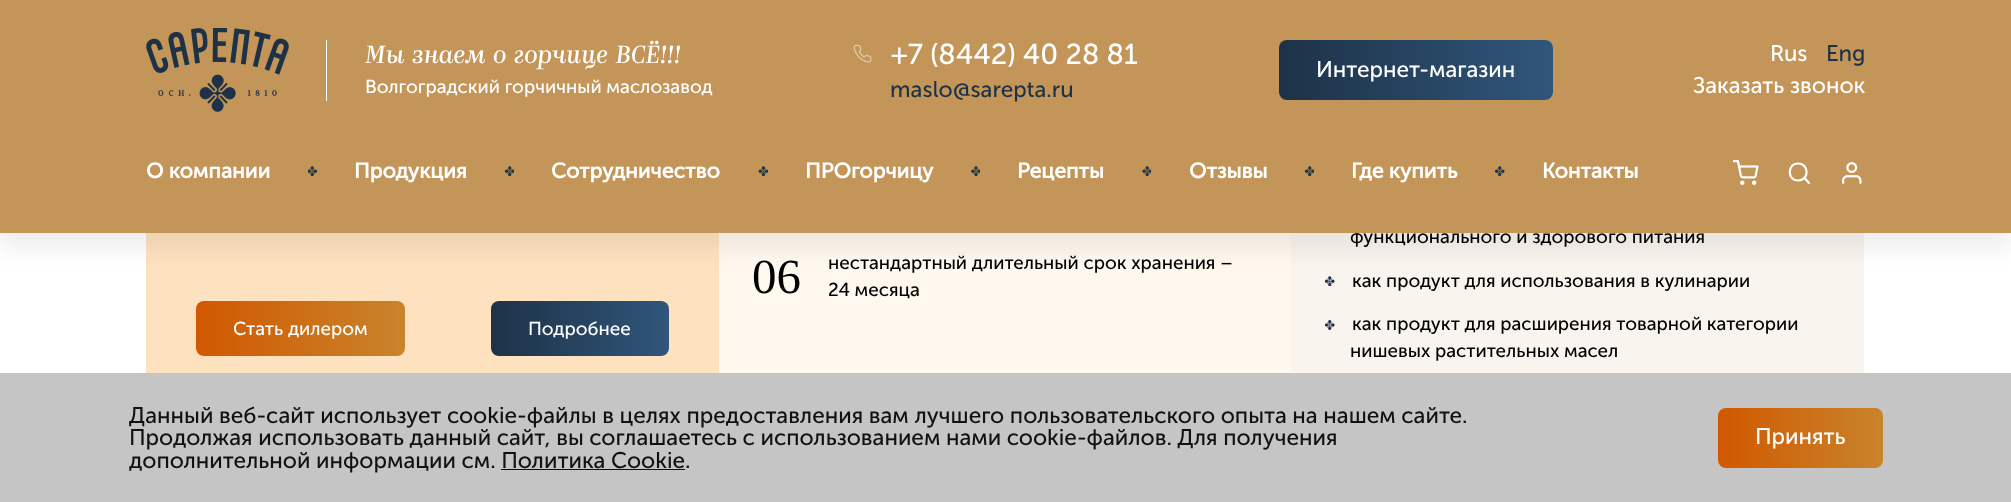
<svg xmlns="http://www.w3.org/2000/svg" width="2011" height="502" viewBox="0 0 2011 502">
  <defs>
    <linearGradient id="g1" gradientUnits="userSpaceOnUse" x1="1279" y1="70" x2="1553" y2="70"><stop offset="0" stop-color="rgb(29,50,71)"/><stop offset="1" stop-color="rgb(48,86,123)"/></linearGradient>
    <linearGradient id="g2" gradientUnits="userSpaceOnUse" x1="196" y1="329" x2="405" y2="329"><stop offset="0" stop-color="rgb(209,88,0)"/><stop offset="1" stop-color="rgb(200,132,44)"/></linearGradient>
    <linearGradient id="g3" gradientUnits="userSpaceOnUse" x1="491" y1="329" x2="669" y2="329"><stop offset="0" stop-color="rgb(29,50,71)"/><stop offset="1" stop-color="rgb(48,86,123)"/></linearGradient>
    <linearGradient id="g4" gradientUnits="userSpaceOnUse" x1="1718" y1="438" x2="1883" y2="438"><stop offset="0" stop-color="rgb(209,88,0)"/><stop offset="1" stop-color="rgb(200,132,44)"/></linearGradient>
  </defs>
  <rect width="100%" height="100%" fill="rgb(255,255,255)"/>
  <rect x="719" y="233" width="572" height="140" fill="rgb(255,248,239)"/>
  <rect x="1291" y="233" width="573" height="140" fill="rgb(249,244,238)"/>
  <image x="1325" y="276" width="10" height="10" href="pic11.png"/>
  <rect x="146" y="233" width="573" height="140" fill="rgb(254,226,192)"/>
  <rect x="0" y="19" width="2011" height="232" fill="rgba(0,0,0,0.06)" filter="blur(9.5px)"/>
  <text x="1350" y="243" font-family="'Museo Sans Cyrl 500'" font-size="18.75" fill="rgb(0,0,0)">функционального и здорового питания</text>
  <rect x="0" y="0" width="2011" height="233" fill="rgb(196,149,88)"/>
  <image x="146" y="28" width="143" height="84" href="pic1.png"/>
  <rect x="326" y="40" width="1" height="61" fill="rgb(255,255,255)"/>
  <text x="365" y="63" font-family="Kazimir" font-size="25" font-style="italic" fill="rgb(255,255,255)">Мы знаем о горчице ВСЁ!!!</text>
  <text x="365" y="93" font-family="'Museo Sans Cyrl 500'" font-size="18.75" fill="rgb(255,255,255)">Волгоградский горчичный маслозавод</text>
  <image x="853" y="44" width="19" height="19" href="pic2.png"/>
  <text x="891" y="64" font-family="'Museo Sans Cyrl 500'" font-size="28.75" fill="rgb(255,255,255)">+7 (8442) 40 28 81</text>
  <text x="890" y="97" font-family="'Museo Sans Cyrl 500'" font-size="22.5" fill="rgb(29,50,71)">maslo@sarepta.ru</text>
  <rect x="1279" y="40" width="274" height="60" rx="8" fill="url(#g1)"/>
  <g font-family="'Museo Sans Cyrl 500'" font-size="22.5" fill="rgb(255,255,255)">
    <text x="1316" y="77">Интернет-магазин</text>
    <text x="1770" y="61">Rus</text>
  </g>
  <text x="1826" y="61" font-family="'Museo Sans Cyrl 500'" font-size="22.5" fill="rgb(29,50,71)">Eng</text>
  <text x="1693" y="93" font-family="'Museo Sans Cyrl 500'" font-size="22.5" fill="rgb(255,255,255)">Заказать звонок</text>
  <text x="146" y="178" font-family="'Museo Sans Cyrl 500'" font-size="21.25" font-weight="bold" fill="rgb(255,255,255)">О компании</text>
  <image x="308" y="166" width="9" height="10" href="pic3.png"/>
  <text x="354" y="178" font-family="'Museo Sans Cyrl 500'" font-size="21.25" font-weight="bold" fill="rgb(255,255,255)">Продукция</text>
  <image x="504" y="166" width="10" height="10" href="pic4.png"/>
  <text x="551" y="178" font-family="'Museo Sans Cyrl 500'" font-size="21.25" font-weight="bold" fill="rgb(255,255,255)">Сотрудничество</text>
  <image x="758" y="166" width="10" height="10" href="pic5.png"/>
  <text x="805" y="178" font-family="'Museo Sans Cyrl 500'" font-size="21.25" font-weight="bold" fill="rgb(255,255,255)">ПРОгорчицу</text>
  <image x="971" y="166" width="9" height="10" href="pic6.png"/>
  <text x="1017" y="178" font-family="'Museo Sans Cyrl 500'" font-size="21.25" font-weight="bold" fill="rgb(255,255,255)">Рецепты</text>
  <image x="1142" y="166" width="9" height="10" href="pic7.png"/>
  <text x="1189" y="178" font-family="'Museo Sans Cyrl 500'" font-size="21.25" font-weight="bold" fill="rgb(255,255,255)">Отзывы</text>
  <image x="1304" y="166" width="10" height="10" href="pic4.png"/>
  <text x="1351" y="178" font-family="'Museo Sans Cyrl 500'" font-size="21.25" font-weight="bold" fill="rgb(255,255,255)">Где купить</text>
  <image x="1495" y="166" width="10" height="10" href="pic8.png"/>
  <text x="1542" y="178" font-family="'Museo Sans Cyrl 500'" font-size="21.25" font-weight="bold" fill="rgb(255,255,255)">Контакты</text>
  <image x="1733" y="160" width="26" height="25" href="pic9.png"/>
  <path d="M1798 180.5C1809.5 180.5 1809.5 163.5 1798 163.5C1787 163.5 1787 180.5 1798 180.5ZM1809 183L1804.5 178" fill="none" stroke="rgb(255,255,255)" stroke-width="2.2" stroke-linecap="round" stroke-linejoin="round"/>
  <image x="1842" y="162" width="20" height="22" href="pic10.png"/>
  <text x="752" y="293" font-family="Liberation Serif" font-size="49" fill="rgb(0,0,0)">06</text>
  <g font-family="'Museo Sans Cyrl 500'" font-size="18.75" fill="rgb(0,0,0)">
    <text>
      <tspan x="828" y="269">нестандартный длительный срок хранения –</tspan>
      <tspan x="828" y="296">24 месяца</tspan>
    </text>
    <text x="1352" y="287">как продукт для использования в кулинарии</text>
  </g>
  <image x="1325" y="320" width="10" height="10" href="pic12.png"/>
  <g font-family="'Museo Sans Cyrl 500'" font-size="18.75" fill="rgb(0,0,0)">
    <text x="1352" y="330">как продукт для расширения товарной категории</text>
    <text x="1350" y="357">нишевых растительных масел</text>
  </g>
  <rect x="196" y="301" width="209" height="55" rx="8" fill="url(#g2)"/>
  <text x="233" y="335" font-family="'Museo Sans Cyrl 500'" font-size="18.75" fill="rgb(255,255,255)">Стать дилером</text>
  <rect x="491" y="301" width="178" height="55" rx="8" fill="url(#g3)"/>
  <text x="528" y="335" font-family="'Museo Sans Cyrl 500'" font-size="18.75" fill="rgb(255,255,255)">Подробнее</text>
  <rect x="0" y="373" width="2011" height="129" fill="rgb(197,197,197)"/>
  <g font-family="'Museo Sans Cyrl 500'" font-size="22.5" fill="rgb(17,17,17)">
    <text>
      <tspan x="129" y="423">Данный веб-сайт использует cookie-файлы в целях предоставления вам лучшего пользовательского опыта на нашем сайте.</tspan>
      <tspan x="129" y="445">Продолжая использовать данный сайт, вы соглашаетесь с использованием нами cookie-файлов. Для получения</tspan>
      <tspan x="129" y="468">дополнительной информации см. Политика Cookie.</tspan>
    </text>
  </g>
  <rect x="501" y="469" width="184" height="1" fill="rgb(17,17,17)"/>
  <rect x="1718" y="408" width="165" height="60" rx="8" fill="url(#g4)"/>
  <text x="1755" y="444" font-family="'Museo Sans Cyrl 500'" font-size="22.5" fill="rgb(255,255,255)">Принять</text>
</svg>
